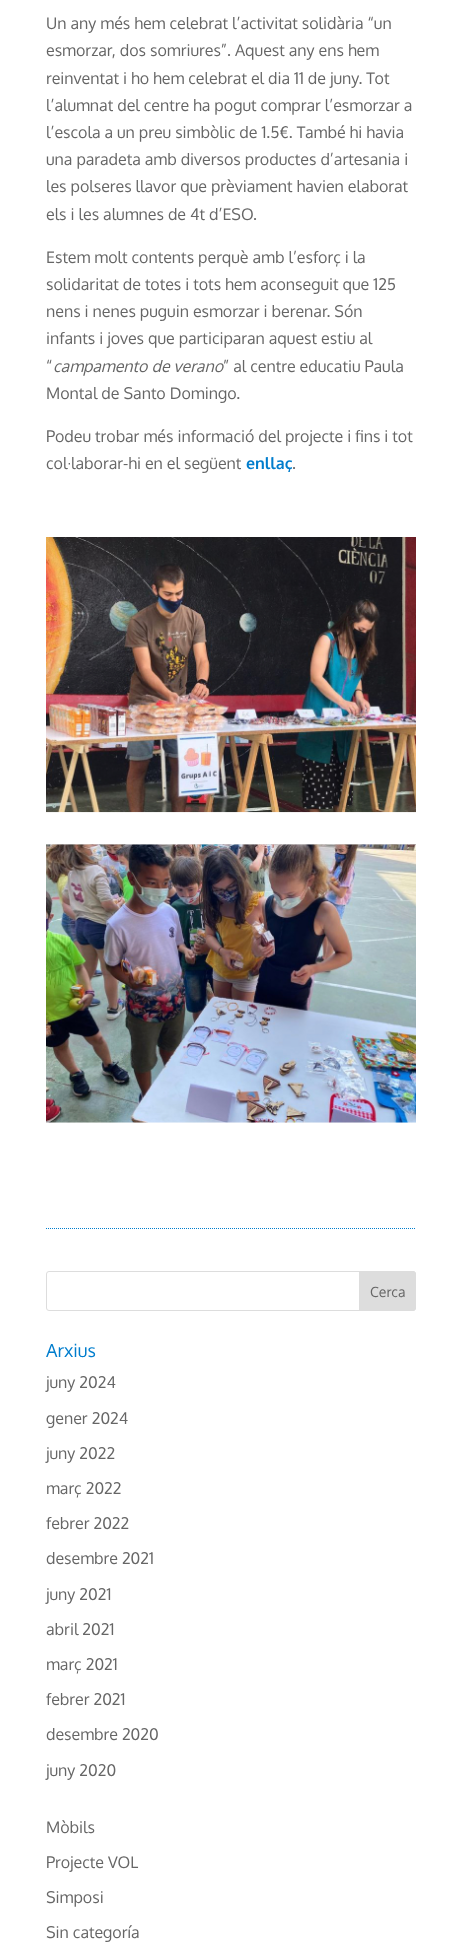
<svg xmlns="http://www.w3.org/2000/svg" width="462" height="1958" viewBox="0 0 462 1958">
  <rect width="100%" height="100%" fill="rgb(255,255,255)"/>
  <path d="M46 1228.5H416" fill="none" stroke="rgb(0,125,205)" stroke-dasharray="1 1"/>
  <g font-family="Oxygen" font-size="16" fill="rgb(102,102,102)">
    <text>
      <tspan x="46" y="29">Un any més hem celebrat l’activitat solidària “un</tspan>
      <tspan x="46" y="56">esmorzar, dos somriures”. Aquest any ens hem</tspan>
      <tspan x="46" y="84">reinventat i ho hem celebrat el dia 11 de juny. Tot</tspan>
      <tspan x="46" y="111">l’alumnat del centre ha pogut comprar l’esmorzar a</tspan>
      <tspan x="46" y="138">l’escola a un preu simbòlic de 1.5€. També hi havia</tspan>
      <tspan x="46" y="165">una paradeta amb diversos productes d’artesania i</tspan>
      <tspan x="46" y="192">les polseres llavor que prèviament havien elaborat</tspan>
      <tspan x="46" y="220">els i les alumnes de 4t d’ESO.</tspan>
    </text>
    <text>
      <tspan x="46" y="263">Estem molt contents perquè amb l’esforç i la</tspan>
      <tspan x="46" y="290">solidaritat de totes i tots hem aconseguit que 125</tspan>
      <tspan x="46" y="317">nens i nenes puguin esmorzar i berenar. Són</tspan>
      <tspan x="46" y="344">infants i joves que participaran aquest estiu al</tspan>
      <tspan x="46" y="372">“</tspan>
    </text>
  </g>
  <text x="53" y="372" font-family="Oxygen" font-size="16" font-style="italic" fill="rgb(102,102,102)">campamento de verano</text>
  <g font-family="Oxygen" font-size="16" fill="rgb(102,102,102)">
    <text x="223" y="372">” al centre educatiu Paula</text>
    <text x="46" y="399">Montal de Santo Domingo.</text>
    <text>
      <tspan x="46" y="442">Podeu trobar més informació del projecte i fins i tot</tspan>
      <tspan x="46" y="469">col·laborar-hi en el següent</tspan>
    </text>
  </g>
  <text x="246" y="469" font-family="Oxygen" font-size="16" font-weight="bold" fill="rgb(0,125,205)">enllaç</text>
  <text x="292" y="469" font-family="Oxygen" font-size="16" fill="rgb(102,102,102)">.</text>
  <image x="46" y="537" width="370" height="276" href="pic1.png"/>
  <image x="46" y="844" width="370" height="279" href="pic2.png"/>
  <rect x="46.5" y="1271.5" width="369" height="39" rx="2.5" fill="none" stroke="rgb(221,221,221)"/>
  <path d="M359.5 1271.5H413C414.5 1271.5 415.5 1272.5 415.5 1274V1308C415.5 1309.5 414.5 1310.5 413 1310.5H359.5Z" fill="rgb(221,221,221)" stroke="rgb(221,221,221)"/>
  <text x="370" y="1297" font-family="Oxygen" font-size="14" fill="rgb(102,102,102)">Cerca</text>
  <text x="46" y="1357" font-family="Oxygen" font-size="18" fill="rgb(0,125,205)">Arxius</text>
  <g font-family="Oxygen" font-size="16" fill="rgb(102,102,102)">
    <text x="46" y="1388">juny 2024</text>
    <text x="46" y="1424">gener 2024</text>
    <text x="46" y="1459">juny 2022</text>
    <text x="46" y="1494">març 2022</text>
    <text x="46" y="1529">febrer 2022</text>
    <text x="46" y="1564">desembre 2021</text>
    <text x="46" y="1600">juny 2021</text>
    <text x="46" y="1635">abril 2021</text>
    <text x="46" y="1670">març 2021</text>
    <text x="46" y="1705">febrer 2021</text>
    <text x="46" y="1740">desembre 2020</text>
    <text x="46" y="1776">juny 2020</text>
    <text x="46" y="1833">Mòbils</text>
    <text x="46" y="1868">Projecte VOL</text>
    <text x="46" y="1903">Simposi</text>
    <text x="46" y="1938">Sin categoría</text>
  </g>
</svg>
